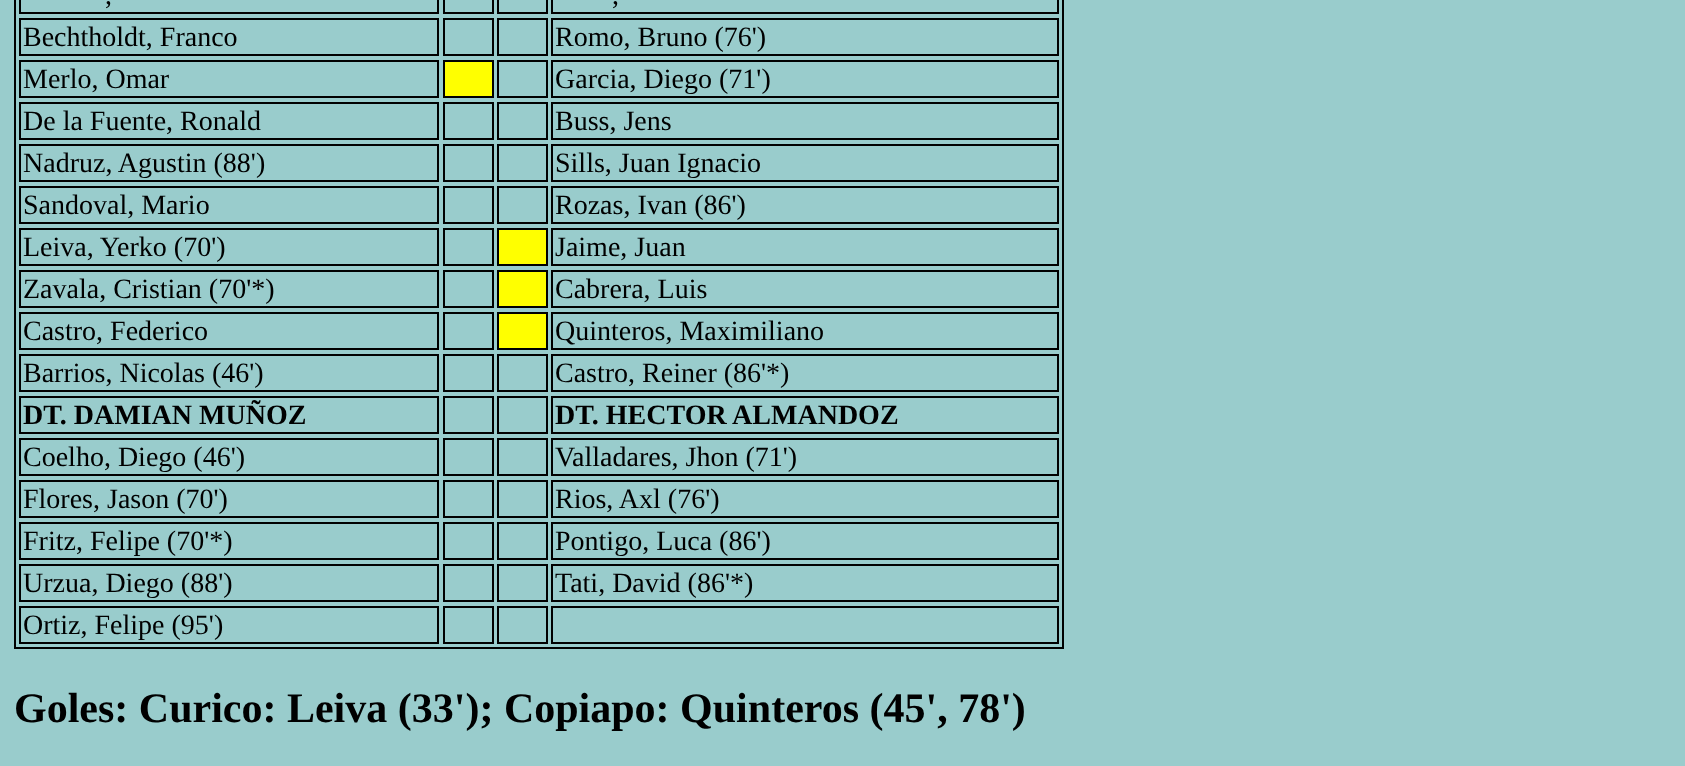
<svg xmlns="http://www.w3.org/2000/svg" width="1685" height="766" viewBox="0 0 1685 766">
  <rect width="100%" height="100%" fill="rgb(153,204,204)"/>
  <rect x="15" y="-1" width="1048" height="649" fill="none" stroke="rgb(0,0,0)" stroke-width="2"/>
  <rect x="20" y="-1" width="418" height="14" fill="none" stroke="rgb(0,0,0)" stroke-width="2"/>
  <text x="105" y="4" font-family="Liberation Serif" font-size="28" fill="rgb(0,0,0)">,</text>
  <rect x="444" y="-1" width="49" height="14" fill="none" stroke="rgb(0,0,0)" stroke-width="2"/>
  <rect x="498" y="-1" width="49" height="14" fill="none" stroke="rgb(0,0,0)" stroke-width="2"/>
  <rect x="552" y="-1" width="506" height="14" fill="none" stroke="rgb(0,0,0)" stroke-width="2"/>
  <text x="612" y="4" font-family="Liberation Serif" font-size="28" fill="rgb(0,0,0)">,</text>
  <rect x="20" y="19" width="418" height="36" fill="none" stroke="rgb(0,0,0)" stroke-width="2"/>
  <text x="23" y="46" font-family="Liberation Serif" font-size="28" fill="rgb(0,0,0)">Bechtholdt, Franco</text>
  <rect x="444" y="19" width="49" height="36" fill="none" stroke="rgb(0,0,0)" stroke-width="2"/>
  <rect x="498" y="19" width="49" height="36" fill="none" stroke="rgb(0,0,0)" stroke-width="2"/>
  <rect x="552" y="19" width="506" height="36" fill="none" stroke="rgb(0,0,0)" stroke-width="2"/>
  <text x="555" y="46" font-family="Liberation Serif" font-size="28" fill="rgb(0,0,0)">Romo, Bruno (76')</text>
  <rect x="20" y="61" width="418" height="36" fill="none" stroke="rgb(0,0,0)" stroke-width="2"/>
  <text x="23" y="88" font-family="Liberation Serif" font-size="28" fill="rgb(0,0,0)">Merlo, Omar</text>
  <rect x="444" y="61" width="49" height="36" fill="rgb(255,255,0)" stroke="rgb(0,0,0)" stroke-width="2"/>
  <rect x="498" y="61" width="49" height="36" fill="none" stroke="rgb(0,0,0)" stroke-width="2"/>
  <rect x="552" y="61" width="506" height="36" fill="none" stroke="rgb(0,0,0)" stroke-width="2"/>
  <text x="555" y="88" font-family="Liberation Serif" font-size="28" fill="rgb(0,0,0)">Garcia, Diego (71')</text>
  <rect x="20" y="103" width="418" height="36" fill="none" stroke="rgb(0,0,0)" stroke-width="2"/>
  <text x="23" y="130" font-family="Liberation Serif" font-size="28" fill="rgb(0,0,0)">De la Fuente, Ronald</text>
  <rect x="444" y="103" width="49" height="36" fill="none" stroke="rgb(0,0,0)" stroke-width="2"/>
  <rect x="498" y="103" width="49" height="36" fill="none" stroke="rgb(0,0,0)" stroke-width="2"/>
  <rect x="552" y="103" width="506" height="36" fill="none" stroke="rgb(0,0,0)" stroke-width="2"/>
  <text x="555" y="130" font-family="Liberation Serif" font-size="28" fill="rgb(0,0,0)">Buss, Jens</text>
  <rect x="20" y="145" width="418" height="36" fill="none" stroke="rgb(0,0,0)" stroke-width="2"/>
  <text x="23" y="172" font-family="Liberation Serif" font-size="28" fill="rgb(0,0,0)">Nadruz, Agustin (88')</text>
  <rect x="444" y="145" width="49" height="36" fill="none" stroke="rgb(0,0,0)" stroke-width="2"/>
  <rect x="498" y="145" width="49" height="36" fill="none" stroke="rgb(0,0,0)" stroke-width="2"/>
  <rect x="552" y="145" width="506" height="36" fill="none" stroke="rgb(0,0,0)" stroke-width="2"/>
  <text x="555" y="172" font-family="Liberation Serif" font-size="28" fill="rgb(0,0,0)">Sills, Juan Ignacio</text>
  <rect x="20" y="187" width="418" height="36" fill="none" stroke="rgb(0,0,0)" stroke-width="2"/>
  <text x="23" y="214" font-family="Liberation Serif" font-size="28" fill="rgb(0,0,0)">Sandoval, Mario</text>
  <rect x="444" y="187" width="49" height="36" fill="none" stroke="rgb(0,0,0)" stroke-width="2"/>
  <rect x="498" y="187" width="49" height="36" fill="none" stroke="rgb(0,0,0)" stroke-width="2"/>
  <rect x="552" y="187" width="506" height="36" fill="none" stroke="rgb(0,0,0)" stroke-width="2"/>
  <text x="555" y="214" font-family="Liberation Serif" font-size="28" fill="rgb(0,0,0)">Rozas, Ivan (86')</text>
  <rect x="20" y="229" width="418" height="36" fill="none" stroke="rgb(0,0,0)" stroke-width="2"/>
  <text x="23" y="256" font-family="Liberation Serif" font-size="28" fill="rgb(0,0,0)">Leiva, Yerko (70')</text>
  <rect x="444" y="229" width="49" height="36" fill="none" stroke="rgb(0,0,0)" stroke-width="2"/>
  <rect x="498" y="229" width="49" height="36" fill="rgb(255,255,0)" stroke="rgb(0,0,0)" stroke-width="2"/>
  <rect x="552" y="229" width="506" height="36" fill="none" stroke="rgb(0,0,0)" stroke-width="2"/>
  <text x="555" y="256" font-family="Liberation Serif" font-size="28" fill="rgb(0,0,0)">Jaime, Juan</text>
  <rect x="20" y="271" width="418" height="36" fill="none" stroke="rgb(0,0,0)" stroke-width="2"/>
  <text x="23" y="298" font-family="Liberation Serif" font-size="28" fill="rgb(0,0,0)">Zavala, Cristian (70'*)</text>
  <rect x="444" y="271" width="49" height="36" fill="none" stroke="rgb(0,0,0)" stroke-width="2"/>
  <rect x="498" y="271" width="49" height="36" fill="rgb(255,255,0)" stroke="rgb(0,0,0)" stroke-width="2"/>
  <rect x="552" y="271" width="506" height="36" fill="none" stroke="rgb(0,0,0)" stroke-width="2"/>
  <text x="555" y="298" font-family="Liberation Serif" font-size="28" fill="rgb(0,0,0)">Cabrera, Luis</text>
  <rect x="20" y="313" width="418" height="36" fill="none" stroke="rgb(0,0,0)" stroke-width="2"/>
  <text x="23" y="340" font-family="Liberation Serif" font-size="28" fill="rgb(0,0,0)">Castro, Federico</text>
  <rect x="444" y="313" width="49" height="36" fill="none" stroke="rgb(0,0,0)" stroke-width="2"/>
  <rect x="498" y="313" width="49" height="36" fill="rgb(255,255,0)" stroke="rgb(0,0,0)" stroke-width="2"/>
  <rect x="552" y="313" width="506" height="36" fill="none" stroke="rgb(0,0,0)" stroke-width="2"/>
  <text x="555" y="340" font-family="Liberation Serif" font-size="28" fill="rgb(0,0,0)">Quinteros, Maximiliano</text>
  <rect x="20" y="355" width="418" height="36" fill="none" stroke="rgb(0,0,0)" stroke-width="2"/>
  <text x="23" y="382" font-family="Liberation Serif" font-size="28" fill="rgb(0,0,0)">Barrios, Nicolas (46')</text>
  <rect x="444" y="355" width="49" height="36" fill="none" stroke="rgb(0,0,0)" stroke-width="2"/>
  <rect x="498" y="355" width="49" height="36" fill="none" stroke="rgb(0,0,0)" stroke-width="2"/>
  <rect x="552" y="355" width="506" height="36" fill="none" stroke="rgb(0,0,0)" stroke-width="2"/>
  <text x="555" y="382" font-family="Liberation Serif" font-size="28" fill="rgb(0,0,0)">Castro, Reiner (86'*)</text>
  <rect x="20" y="397" width="418" height="36" fill="none" stroke="rgb(0,0,0)" stroke-width="2"/>
  <text x="23" y="424" font-family="Liberation Serif" font-size="28" font-weight="bold" fill="rgb(0,0,0)">DT. DAMIAN MUÑOZ</text>
  <rect x="444" y="397" width="49" height="36" fill="none" stroke="rgb(0,0,0)" stroke-width="2"/>
  <rect x="498" y="397" width="49" height="36" fill="none" stroke="rgb(0,0,0)" stroke-width="2"/>
  <rect x="552" y="397" width="506" height="36" fill="none" stroke="rgb(0,0,0)" stroke-width="2"/>
  <text x="555" y="424" font-family="Liberation Serif" font-size="28" font-weight="bold" fill="rgb(0,0,0)">DT. HECTOR ALMANDOZ</text>
  <rect x="20" y="439" width="418" height="36" fill="none" stroke="rgb(0,0,0)" stroke-width="2"/>
  <text x="23" y="466" font-family="Liberation Serif" font-size="28" fill="rgb(0,0,0)">Coelho, Diego (46')</text>
  <rect x="444" y="439" width="49" height="36" fill="none" stroke="rgb(0,0,0)" stroke-width="2"/>
  <rect x="498" y="439" width="49" height="36" fill="none" stroke="rgb(0,0,0)" stroke-width="2"/>
  <rect x="552" y="439" width="506" height="36" fill="none" stroke="rgb(0,0,0)" stroke-width="2"/>
  <text x="555" y="466" font-family="Liberation Serif" font-size="28" fill="rgb(0,0,0)">Valladares, Jhon (71')</text>
  <rect x="20" y="481" width="418" height="36" fill="none" stroke="rgb(0,0,0)" stroke-width="2"/>
  <text x="23" y="508" font-family="Liberation Serif" font-size="28" fill="rgb(0,0,0)">Flores, Jason (70')</text>
  <rect x="444" y="481" width="49" height="36" fill="none" stroke="rgb(0,0,0)" stroke-width="2"/>
  <rect x="498" y="481" width="49" height="36" fill="none" stroke="rgb(0,0,0)" stroke-width="2"/>
  <rect x="552" y="481" width="506" height="36" fill="none" stroke="rgb(0,0,0)" stroke-width="2"/>
  <text x="555" y="508" font-family="Liberation Serif" font-size="28" fill="rgb(0,0,0)">Rios, Axl (76')</text>
  <rect x="20" y="523" width="418" height="36" fill="none" stroke="rgb(0,0,0)" stroke-width="2"/>
  <text x="23" y="550" font-family="Liberation Serif" font-size="28" fill="rgb(0,0,0)">Fritz, Felipe (70'*)</text>
  <rect x="444" y="523" width="49" height="36" fill="none" stroke="rgb(0,0,0)" stroke-width="2"/>
  <rect x="498" y="523" width="49" height="36" fill="none" stroke="rgb(0,0,0)" stroke-width="2"/>
  <rect x="552" y="523" width="506" height="36" fill="none" stroke="rgb(0,0,0)" stroke-width="2"/>
  <text x="555" y="550" font-family="Liberation Serif" font-size="28" fill="rgb(0,0,0)">Pontigo, Luca (86')</text>
  <rect x="20" y="565" width="418" height="36" fill="none" stroke="rgb(0,0,0)" stroke-width="2"/>
  <text x="23" y="592" font-family="Liberation Serif" font-size="28" fill="rgb(0,0,0)">Urzua, Diego (88')</text>
  <rect x="444" y="565" width="49" height="36" fill="none" stroke="rgb(0,0,0)" stroke-width="2"/>
  <rect x="498" y="565" width="49" height="36" fill="none" stroke="rgb(0,0,0)" stroke-width="2"/>
  <rect x="552" y="565" width="506" height="36" fill="none" stroke="rgb(0,0,0)" stroke-width="2"/>
  <text x="555" y="592" font-family="Liberation Serif" font-size="28" fill="rgb(0,0,0)">Tati, David (86'*)</text>
  <rect x="20" y="607" width="418" height="36" fill="none" stroke="rgb(0,0,0)" stroke-width="2"/>
  <text x="23" y="634" font-family="Liberation Serif" font-size="28" fill="rgb(0,0,0)">Ortiz, Felipe (95')</text>
  <rect x="444" y="607" width="49" height="36" fill="none" stroke="rgb(0,0,0)" stroke-width="2"/>
  <rect x="498" y="607" width="49" height="36" fill="none" stroke="rgb(0,0,0)" stroke-width="2"/>
  <rect x="552" y="607" width="506" height="36" fill="none" stroke="rgb(0,0,0)" stroke-width="2"/>
  <text x="14" y="722" font-family="Liberation Serif" font-size="42" font-weight="bold" fill="rgb(0,0,0)">Goles: Curico: Leiva (33'); Copiapo: Quinteros (45', 78')</text>
</svg>
